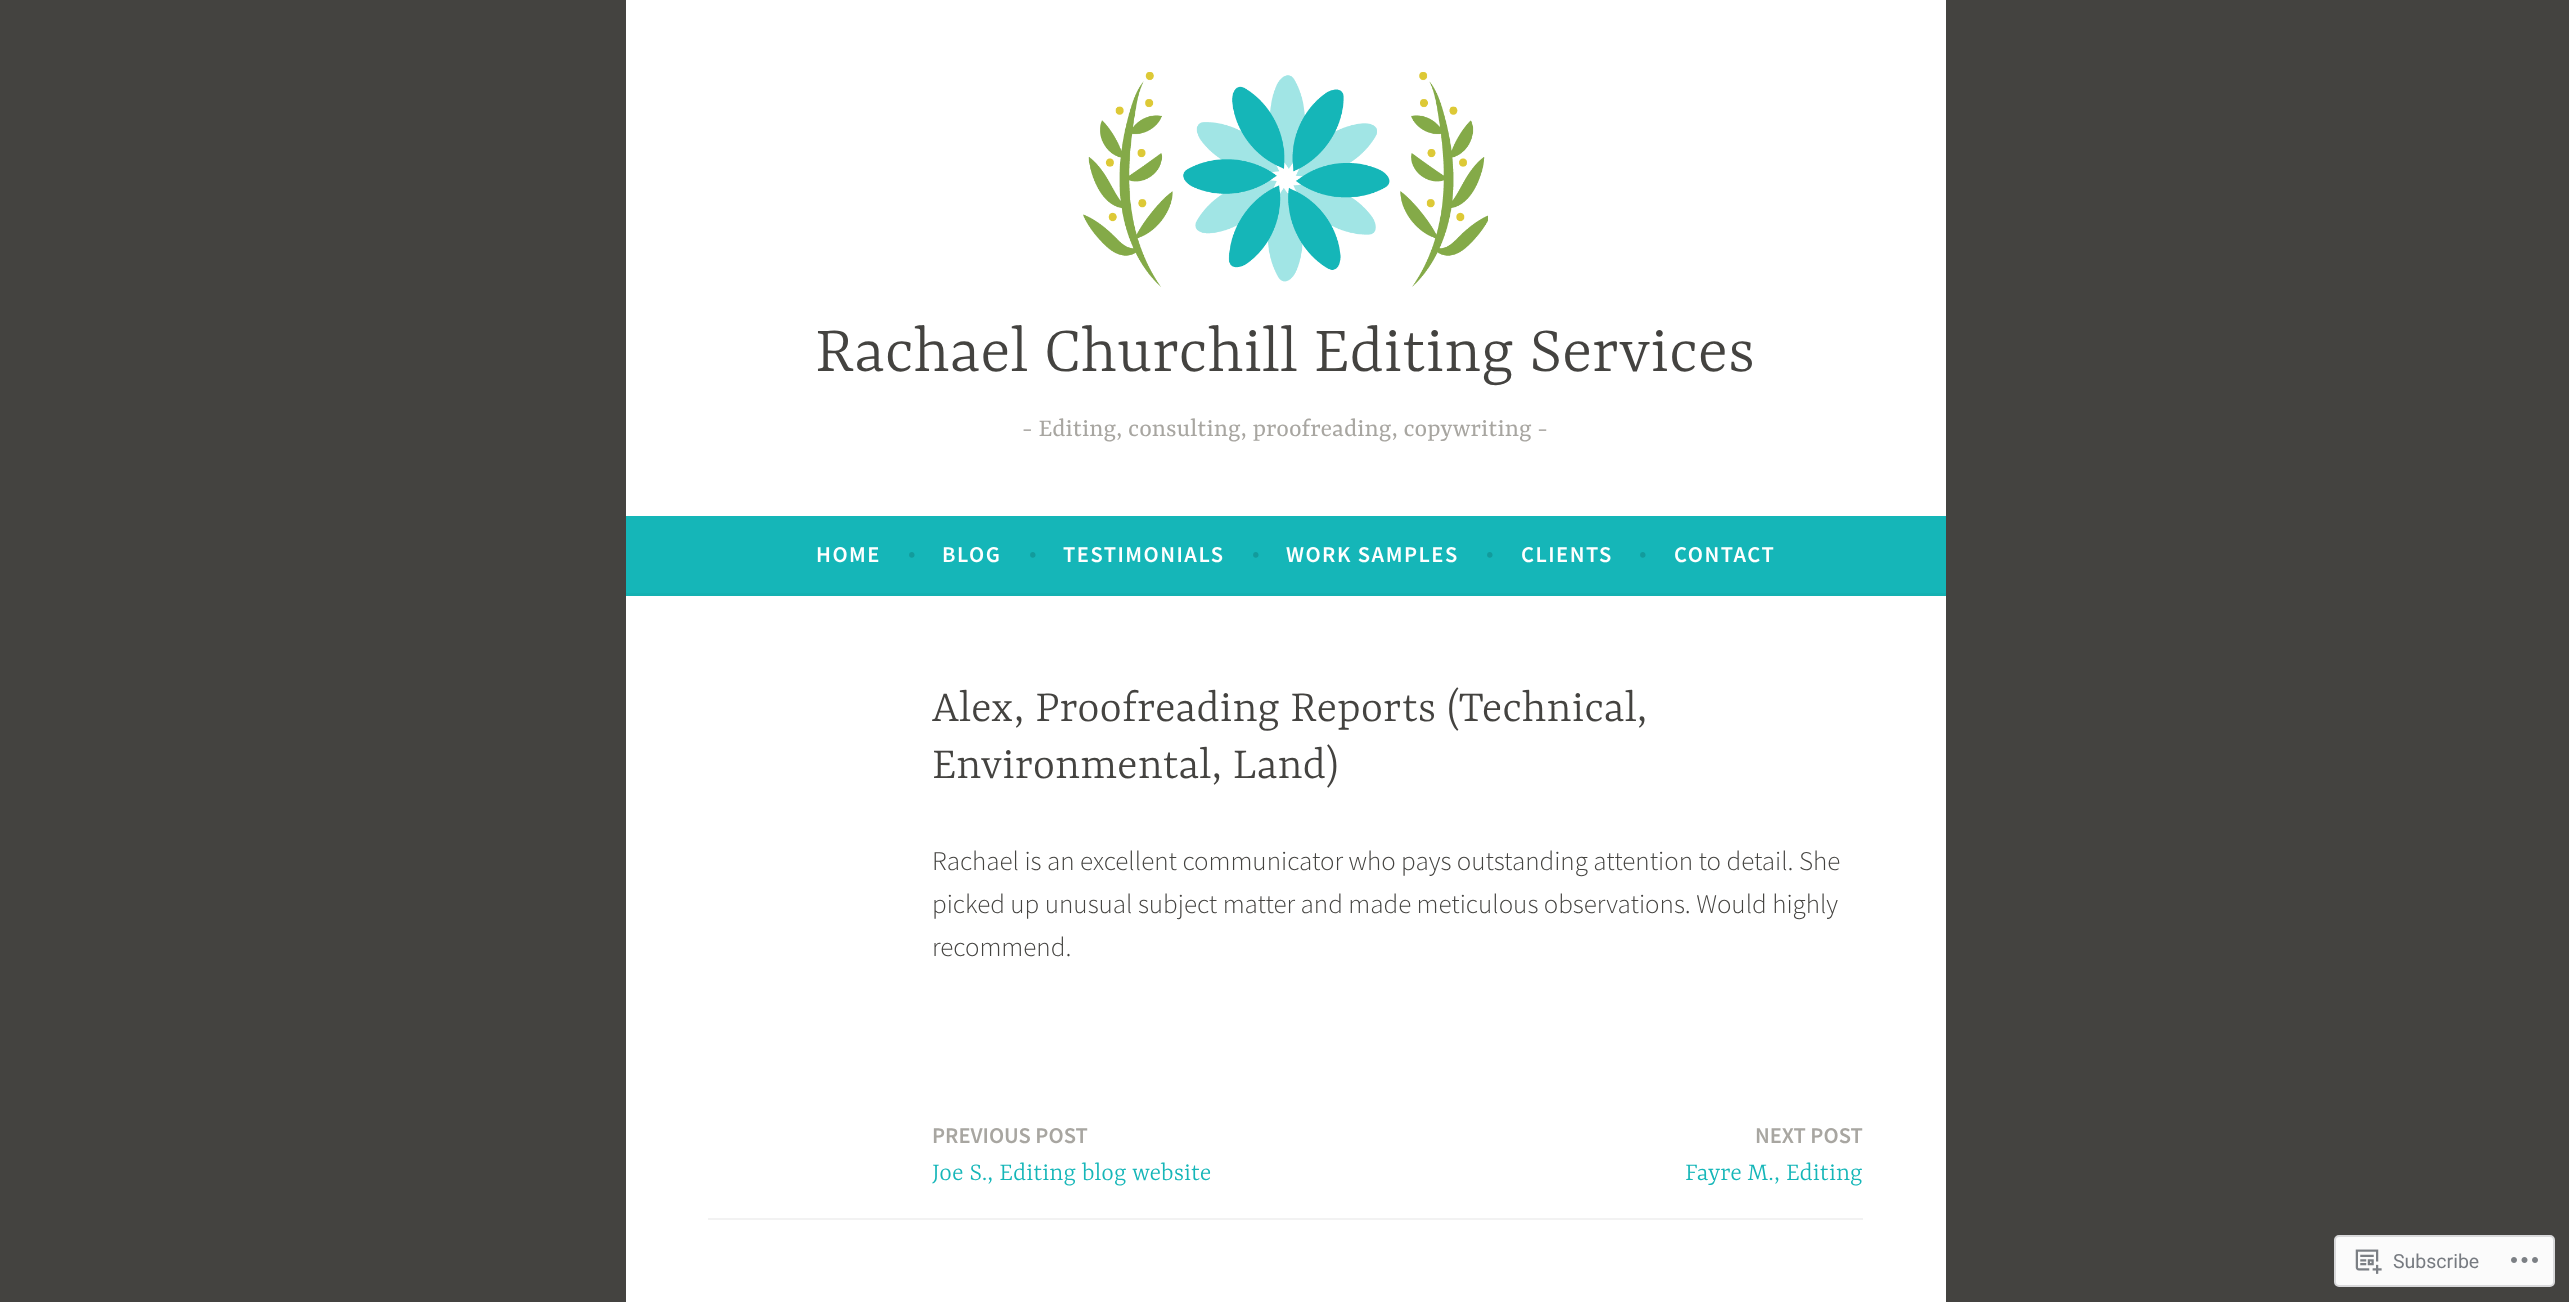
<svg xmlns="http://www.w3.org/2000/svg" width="2569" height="1302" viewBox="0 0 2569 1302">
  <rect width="100%" height="100%" fill="rgb(68,67,64)"/>
  <rect x="626" y="0" width="1320" height="516" fill="rgb(255,255,255)"/>
  <image x="1083" y="72" width="405" height="215" href="pic1.png"/>
  <text x="815" y="371" font-family="Yrsa" font-size="70.5" font-weight="300" fill="rgb(68,67,64)">Rachael Churchill Editing Services</text>
  <text x="1022" y="436" font-family="Yrsa" font-size="27" fill="rgb(168,166,161)">- Editing, consulting, proofreading, copywriting -</text>
  <rect x="626" y="516" width="1320" height="77" fill="rgb(21,182,184)"/>
  <rect x="626" y="593" width="1320" height="3" fill="rgb(20,177,178)"/>
  <text x="816" y="562" font-family="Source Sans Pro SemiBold" font-size="22.5" font-weight="600" letter-spacing="1.5" fill="rgb(255,255,255)">HOME</text>
  <text x="908" y="562" font-family="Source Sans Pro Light" font-size="27" font-weight="300" fill="rgb(18,155,156)">•</text>
  <text x="942" y="562" font-family="Source Sans Pro SemiBold" font-size="22.5" font-weight="600" letter-spacing="1.5" fill="rgb(255,255,255)">BLOG</text>
  <text x="1029" y="562" font-family="Source Sans Pro Light" font-size="27" font-weight="300" fill="rgb(18,155,156)">•</text>
  <text x="1063" y="562" font-family="Source Sans Pro SemiBold" font-size="22.5" font-weight="600" letter-spacing="1.5" fill="rgb(255,255,255)">TESTIMONIALS</text>
  <text x="1252" y="562" font-family="Source Sans Pro Light" font-size="27" font-weight="300" fill="rgb(18,155,156)">•</text>
  <text x="1286" y="562" font-family="Source Sans Pro SemiBold" font-size="22.5" font-weight="600" letter-spacing="1.5" fill="rgb(255,255,255)">WORK SAMPLES</text>
  <text x="1486" y="562" font-family="Source Sans Pro Light" font-size="27" font-weight="300" fill="rgb(18,155,156)">•</text>
  <text x="1521" y="562" font-family="Source Sans Pro SemiBold" font-size="22.5" font-weight="600" letter-spacing="1.5" fill="rgb(255,255,255)">CLIENTS</text>
  <text x="1639" y="562" font-family="Source Sans Pro Light" font-size="27" font-weight="300" fill="rgb(18,155,156)">•</text>
  <text x="1674" y="562" font-family="Source Sans Pro SemiBold" font-size="22.5" font-weight="600" letter-spacing="1.5" fill="rgb(255,255,255)">CONTACT</text>
  <rect x="626" y="596" width="1320" height="706" fill="rgb(255,255,255)"/>
  <g font-family="Yrsa" font-size="48" font-weight="300" fill="rgb(68,67,64)">
    <text>
      <tspan x="932" y="721">Alex, Proofreading Reports (Technical,</tspan>
      <tspan x="932" y="778">Environmental, Land)</tspan>
    </text>
  </g>
  <g font-family="Source Sans Pro Light" font-size="27" font-weight="300" fill="rgb(68,67,64)">
    <text>
      <tspan x="932" y="870">Rachael is an excellent communicator who pays outstanding attention to detail. She</tspan>
      <tspan x="932" y="913">picked up unusual subject matter and made meticulous observations. Would highly</tspan>
      <tspan x="932" y="956">recommend.</tspan>
    </text>
  </g>
  <text x="932" y="1143" font-family="Source Sans Pro SemiBold" font-size="22.5" font-weight="600" fill="rgb(168,166,161)">PREVIOUS POST</text>
  <text x="932" y="1180" font-family="Yrsa" font-size="27" font-weight="300" fill="rgb(21,182,184)">Joe S., Editing blog website</text>
  <text x="1755" y="1143" font-family="Source Sans Pro SemiBold" font-size="22.5" font-weight="600" fill="rgb(168,166,161)">NEXT POST</text>
  <text x="1685" y="1180" font-family="Yrsa" font-size="27" font-weight="300" fill="rgb(21,182,184)">Fayre M., Editing</text>
  <rect x="708" y="1218" width="1155" height="2" fill="rgb(242,242,242)"/>
  <rect x="2335" y="1236" width="219" height="50" rx="4" fill="rgb(251,251,251)" stroke="rgb(217,217,219)" stroke-width="2"/>
  <image x="2355" y="1249" width="27" height="25" href="pic2.png"/>
  <text x="2393" y="1268" font-family="Roboto" font-size="19.5" fill="rgb(119,123,129)">Subscribe</text>
  <image x="2511" y="1257" width="27" height="6" href="pic3.png"/>
</svg>
